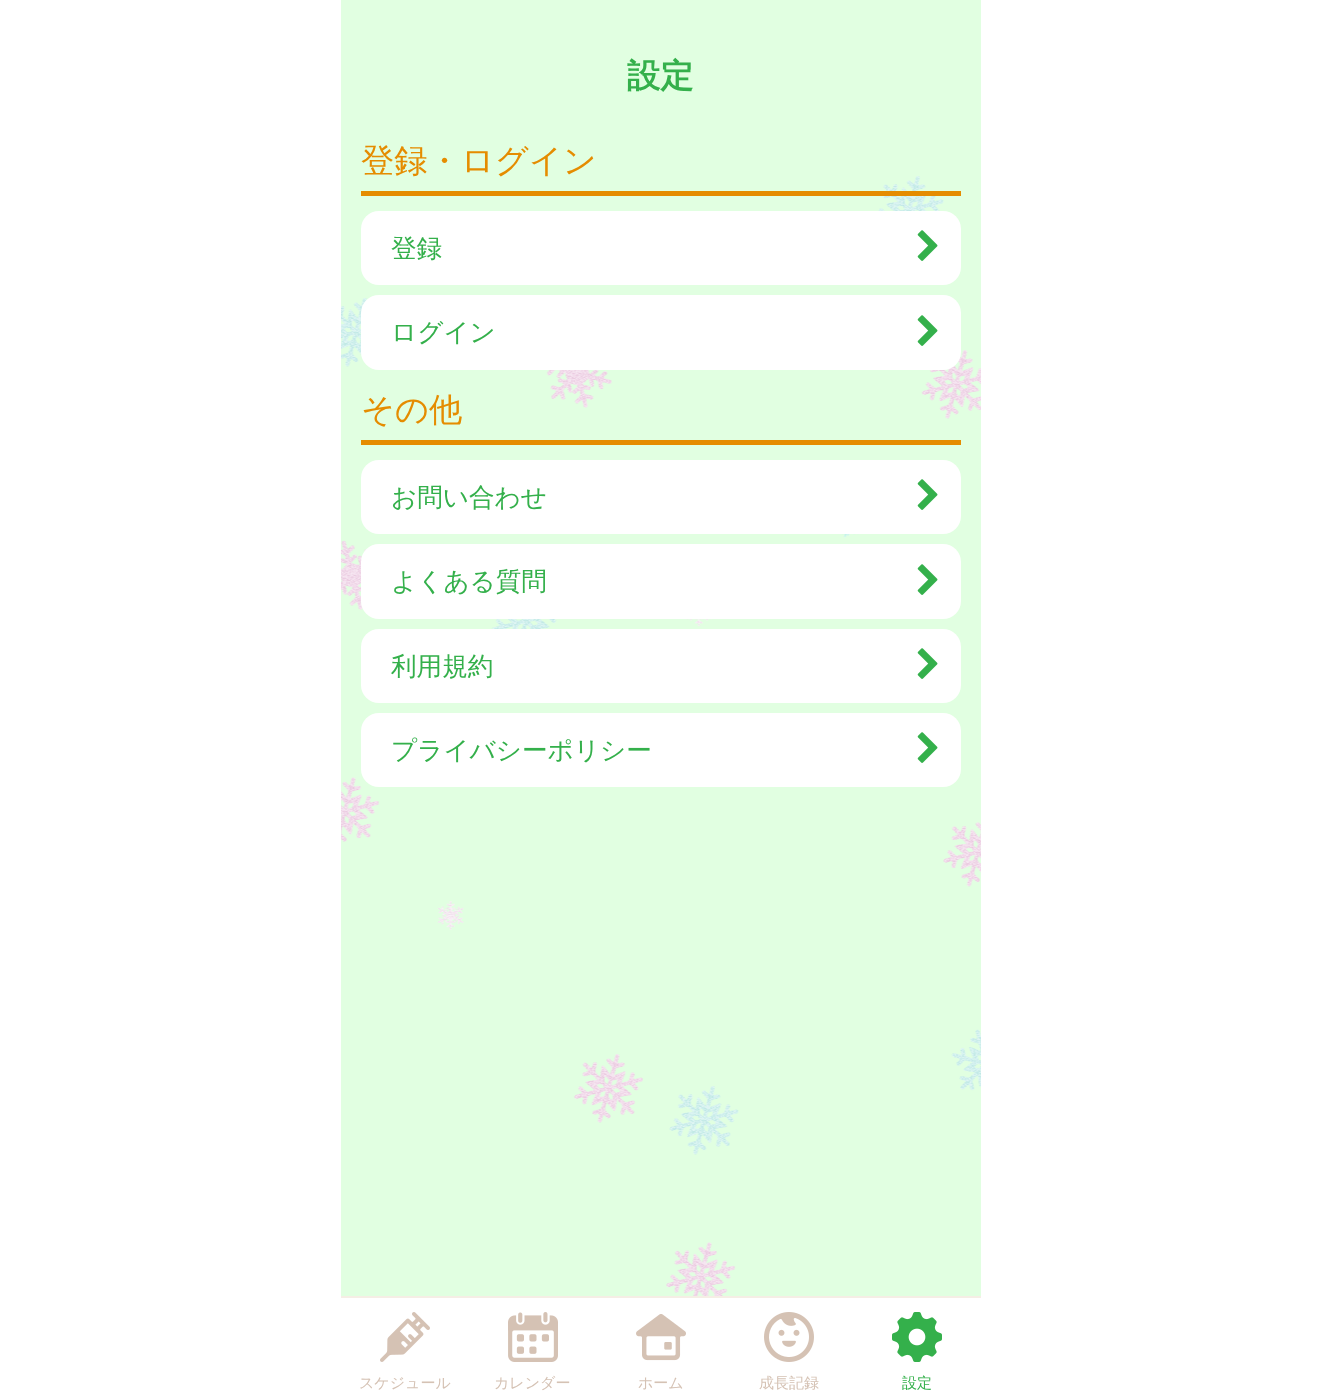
<svg xmlns="http://www.w3.org/2000/svg" width="1321" height="1398" viewBox="0 0 1321 1398">
  <rect width="100%" height="100%" fill="rgb(255,255,255)"/>
  <rect x="341" y="0" width="640" height="176" fill="rgb(225,255,225)"/>
  <image x="341" y="176" width="640" height="1120" href="pic1.png"/>
  <text x="627" y="87" font-family="WenQuanYi Zen Hei" font-size="33.25" font-weight="bold" fill="rgb(52,176,75)">設定</text>
  <rect x="361" y="191" width="600" height="5" fill="rgb(229,140,0)"/>
  <text x="361" y="172" font-family="WenQuanYi Zen Hei" font-size="33.25" font-weight="500" fill="rgb(229,140,0)">登録・ログイン</text>
  <rect x="361" y="211" width="600" height="74" rx="18" fill="rgb(255,255,255)"/>
  <text x="391" y="257" font-family="WenQuanYi Zen Hei" font-size="25.6" font-weight="500" fill="rgb(52,176,75)">登録</text>
  <image x="917" y="230" width="21" height="31" href="pic2.png"/>
  <rect x="361" y="295" width="600" height="75" rx="18" fill="rgb(255,255,255)"/>
  <text x="391" y="341" font-family="WenQuanYi Zen Hei" font-size="25.6" font-weight="500" fill="rgb(52,176,75)">ログイン</text>
  <image x="917" y="315" width="21" height="31" href="pic2.png"/>
  <rect x="361" y="440" width="600" height="5" fill="rgb(229,140,0)"/>
  <text x="361" y="421" font-family="WenQuanYi Zen Hei" font-size="33.25" font-weight="500" fill="rgb(229,140,0)">その他</text>
  <rect x="361" y="460" width="600" height="74" rx="18" fill="rgb(255,255,255)"/>
  <text x="391" y="506" font-family="WenQuanYi Zen Hei" font-size="25.6" font-weight="500" fill="rgb(52,176,75)">お問い合わせ</text>
  <image x="917" y="479" width="21" height="31" href="pic2.png"/>
  <rect x="361" y="544" width="600" height="75" rx="18" fill="rgb(255,255,255)"/>
  <text x="391" y="590" font-family="WenQuanYi Zen Hei" font-size="25.6" font-weight="500" fill="rgb(52,176,75)">よくある質問</text>
  <image x="917" y="564" width="21" height="31" href="pic2.png"/>
  <rect x="361" y="629" width="600" height="74" rx="18" fill="rgb(255,255,255)"/>
  <text x="391" y="675" font-family="WenQuanYi Zen Hei" font-size="25.6" font-weight="500" fill="rgb(52,176,75)">利用規約</text>
  <image x="917" y="648" width="21" height="31" href="pic2.png"/>
  <rect x="361" y="713" width="600" height="74" rx="18" fill="rgb(255,255,255)"/>
  <text x="391" y="759" font-family="WenQuanYi Zen Hei" font-size="25.6" font-weight="500" fill="rgb(52,176,75)">プライバシーポリシー</text>
  <image x="917" y="732" width="21" height="31" href="pic2.png"/>
  <rect x="341" y="1296" width="640" height="2" fill="rgb(245,238,229)"/>
  <image x="380" y="1312" width="50" height="50" href="pic3.png"/>
  <text x="359" y="1388" font-family="WenQuanYi Zen Hei" font-size="15" font-weight="500" fill="rgb(213,194,180)">スケジュール</text>
  <image x="508" y="1312" width="50" height="50" href="pic4.png"/>
  <text x="494" y="1388" font-family="WenQuanYi Zen Hei" font-size="15" font-weight="500" fill="rgb(213,194,180)">カレンダー</text>
  <image x="636" y="1314" width="50" height="47" href="pic5.png"/>
  <text x="638" y="1388" font-family="WenQuanYi Zen Hei" font-size="15" font-weight="500" fill="rgb(213,194,180)">ホーム</text>
  <image x="764" y="1312" width="50" height="50" href="pic6.png"/>
  <text x="759" y="1388" font-family="WenQuanYi Zen Hei" font-size="15" font-weight="500" fill="rgb(213,194,180)">成長記録</text>
  <image x="892" y="1312" width="50" height="50" href="pic7.png"/>
  <text x="902" y="1388" font-family="WenQuanYi Zen Hei" font-size="15" font-weight="500" fill="rgb(52,176,75)">設定</text>
</svg>
